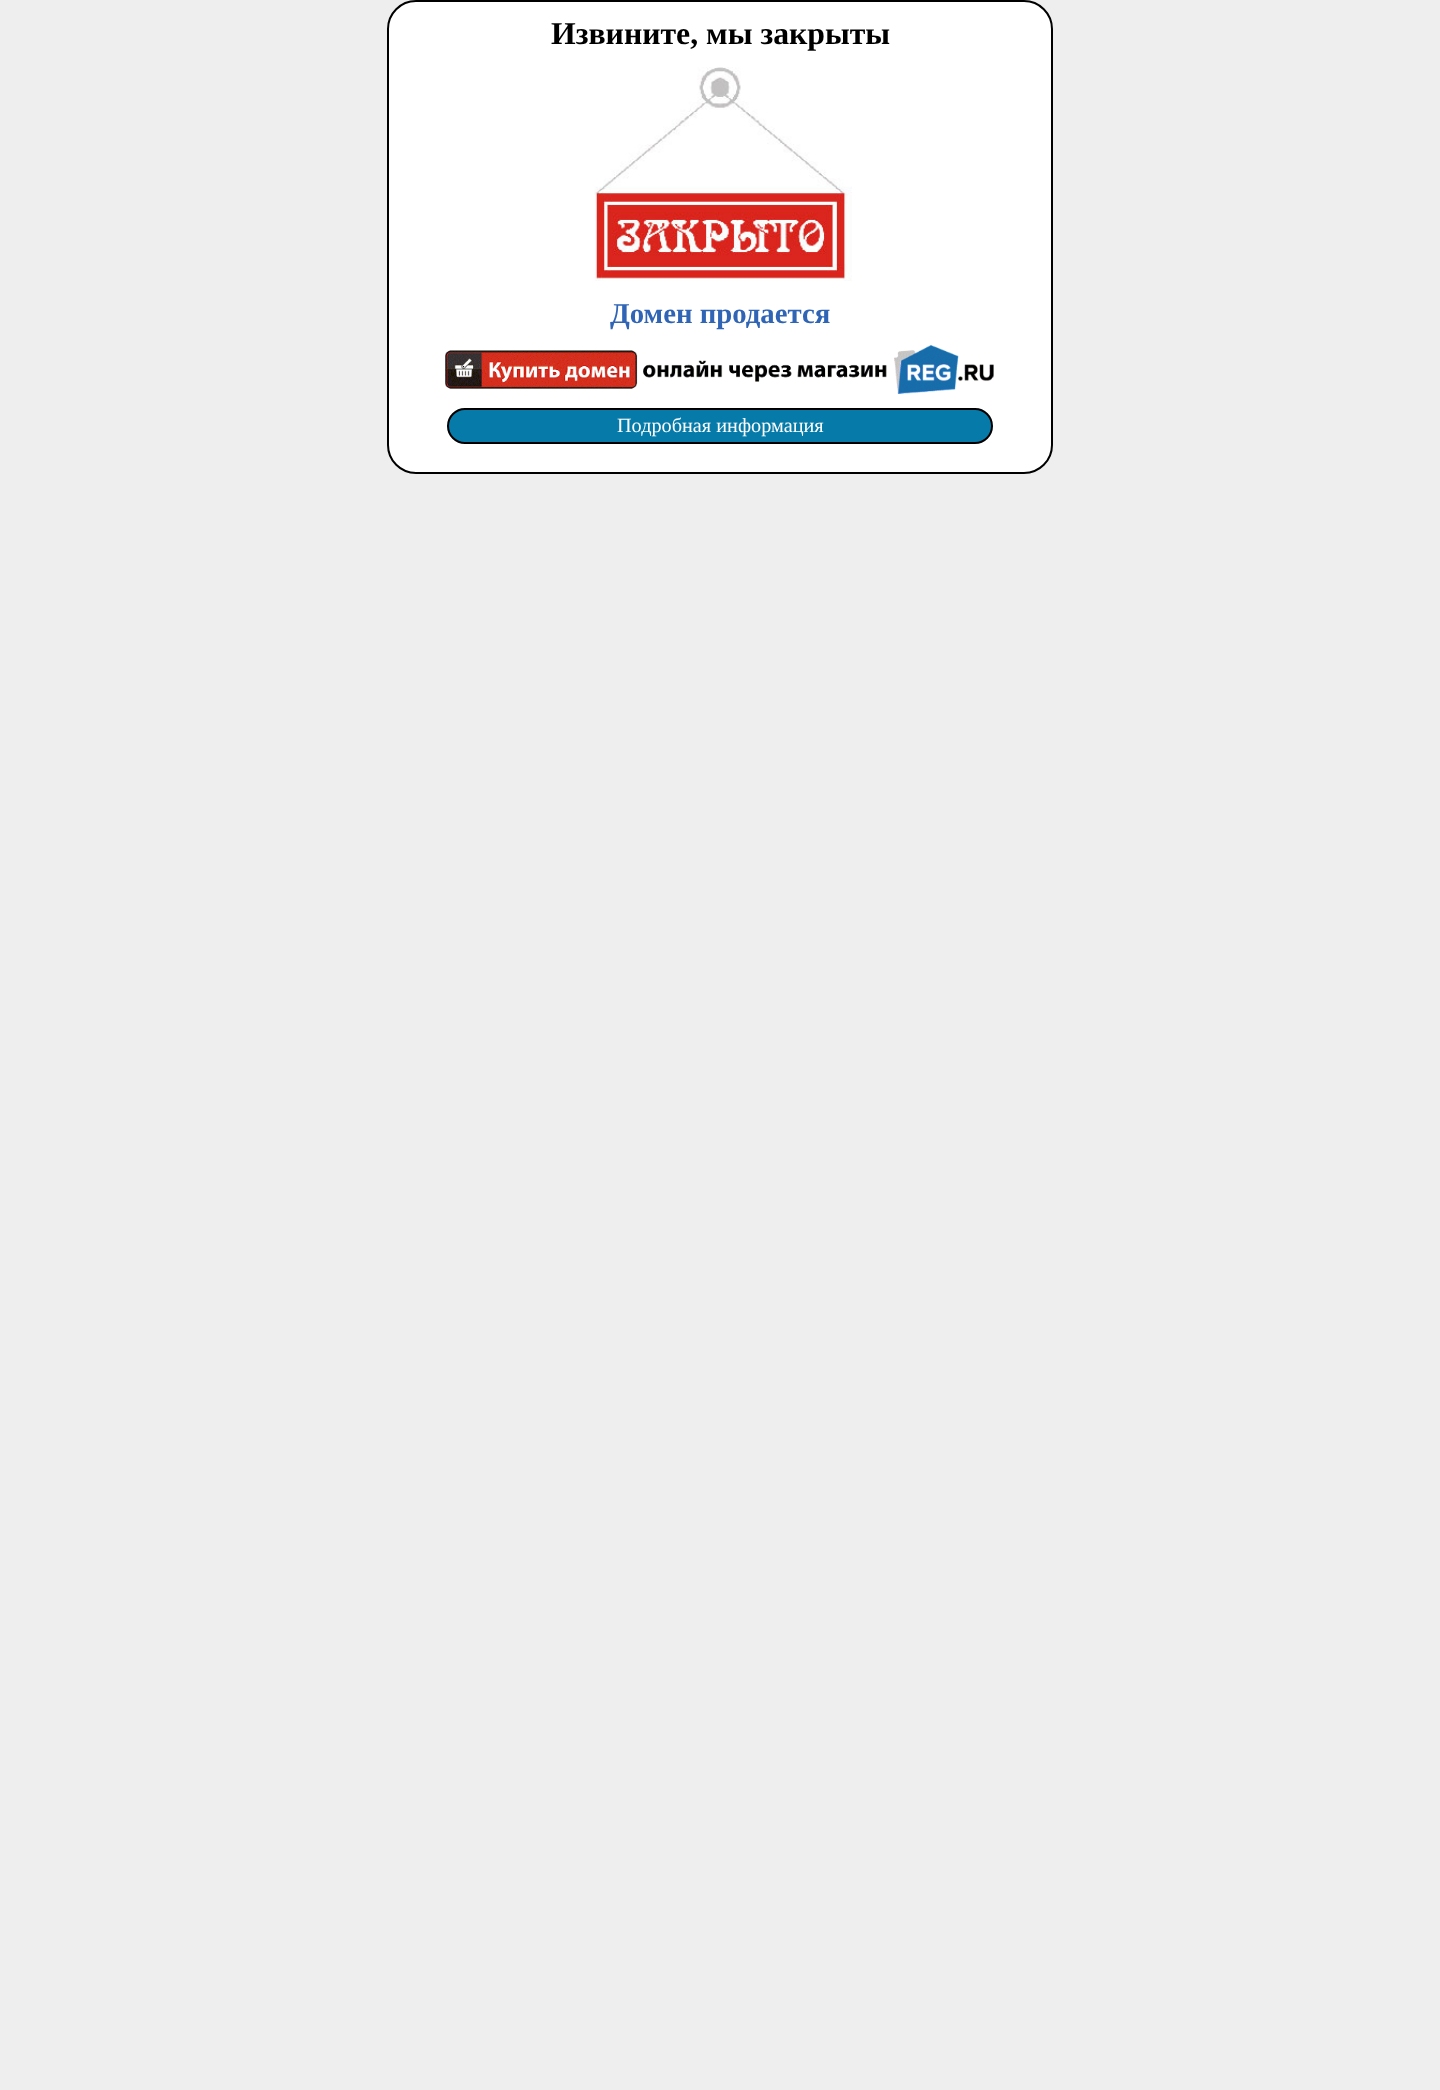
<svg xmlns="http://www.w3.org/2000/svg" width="1440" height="2090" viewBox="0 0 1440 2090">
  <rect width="100%" height="100%" fill="rgb(238,238,238)"/>
  <rect x="388" y="1" width="664" height="472" rx="28" fill="rgb(255,255,255)" stroke="rgb(0,0,0)" stroke-width="2"/>
  <text x="551" y="44" font-family="Liberation Serif" font-size="31.75" font-weight="bold" fill="rgb(0,0,0)">Извините, мы закрыты</text>
  <image x="594" y="67" width="258" height="214" href="pic1.png"/>
  <text x="610" y="323" font-family="Liberation Serif" font-size="28.75" font-weight="bold" fill="rgb(48,101,181)">Домен продается</text>
  <image x="445" y="345" width="549" height="49" href="pic2.png"/>
  <rect x="448" y="409" width="544" height="34" rx="17" fill="rgb(6,123,170)" stroke="rgb(0,0,0)" stroke-width="2"/>
  <text x="617" y="432" font-family="Liberation Serif" font-size="20.25" fill="rgb(255,255,255)">Подробная информация</text>
</svg>
